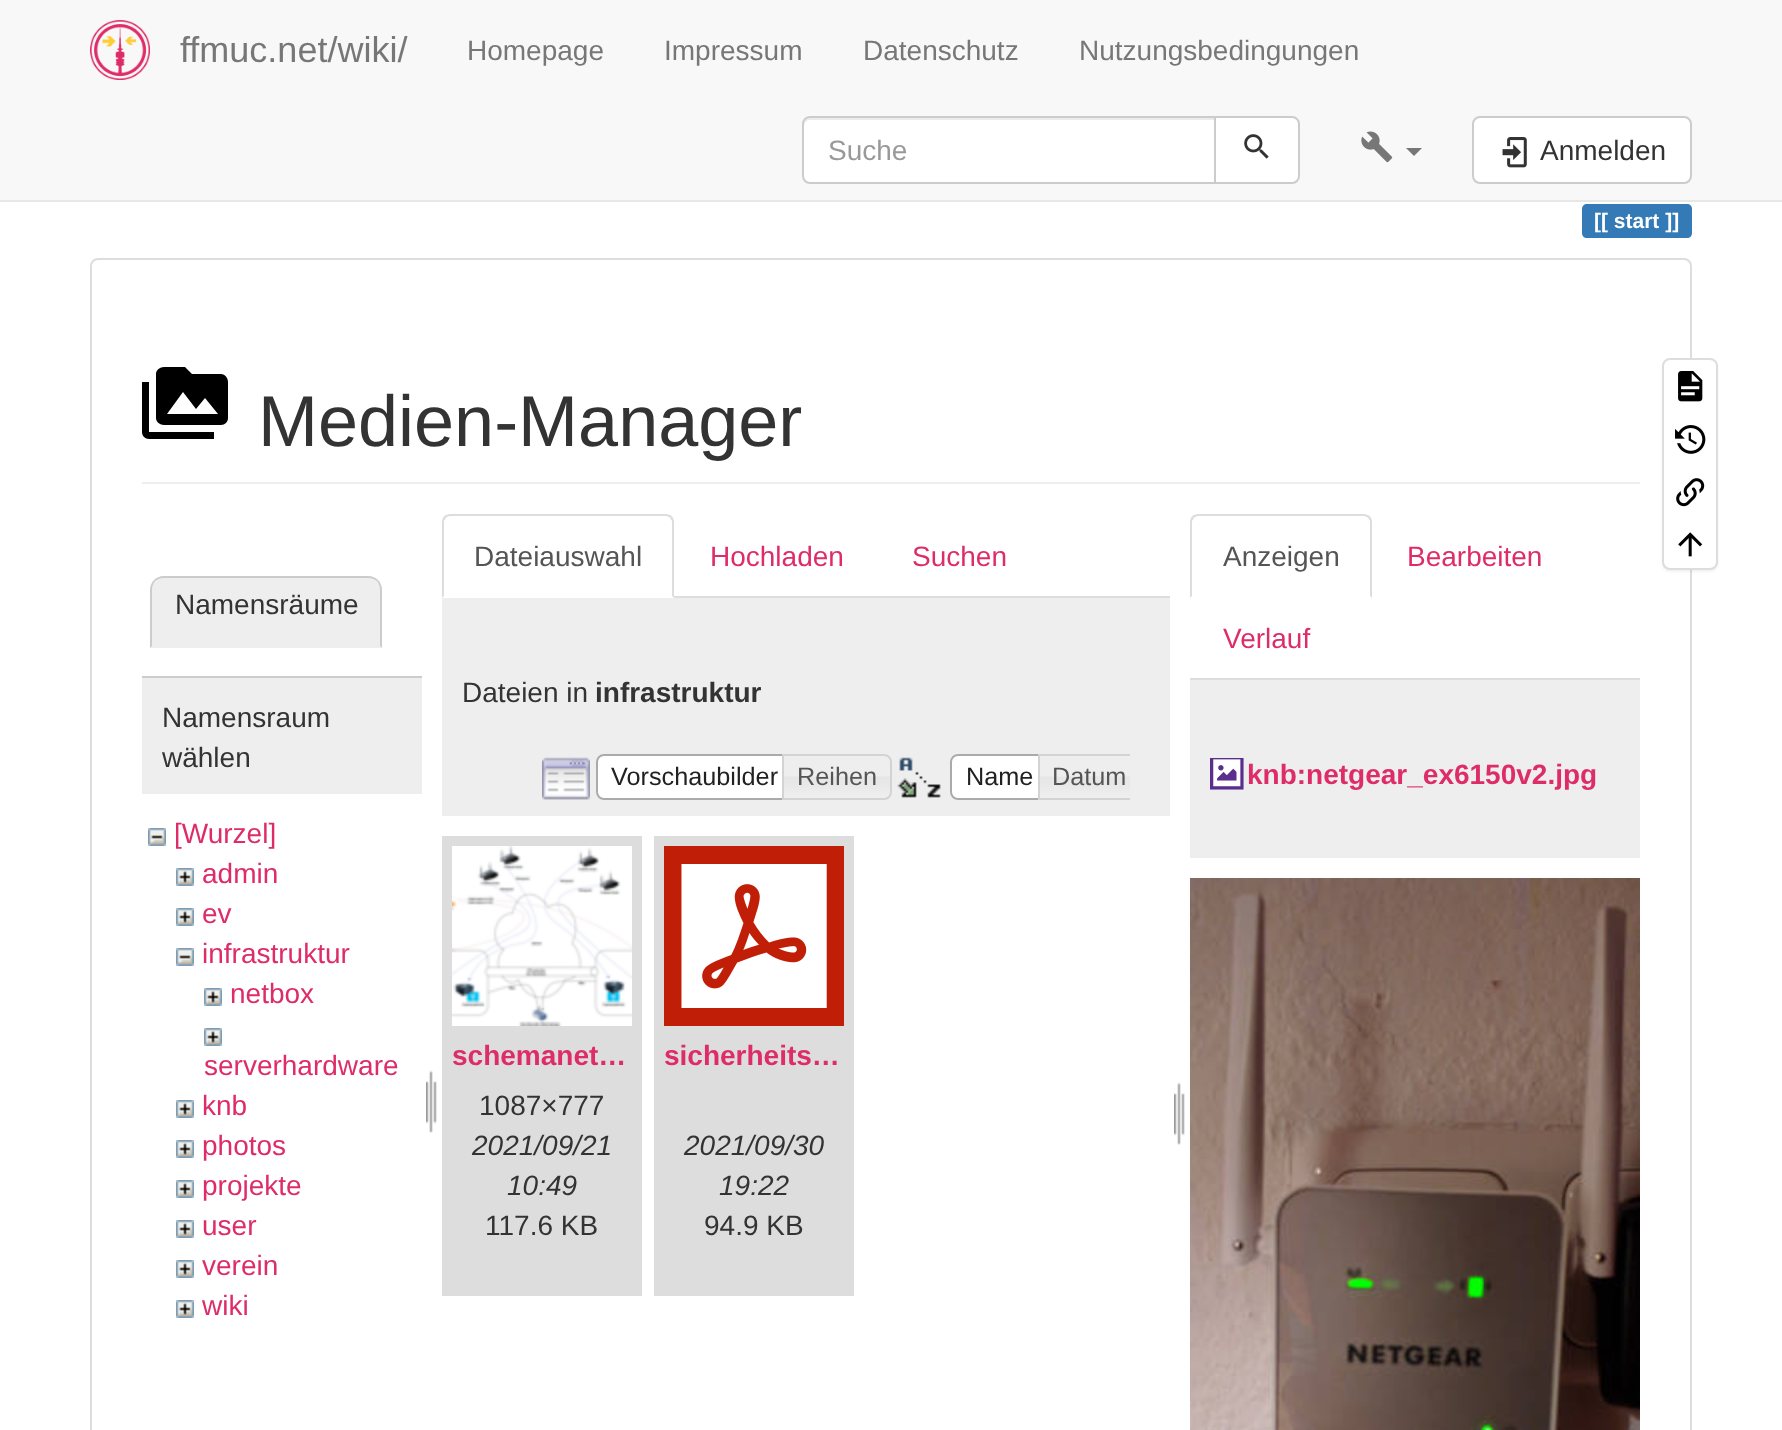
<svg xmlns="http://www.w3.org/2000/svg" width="1782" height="1430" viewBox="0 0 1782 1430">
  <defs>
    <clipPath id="clip1"><rect x="526" y="754" width="604" height="46"/></clipPath>
  </defs>
  <rect width="100%" height="100%" fill="rgb(255,255,255)"/>
  <rect x="0" y="0" width="1782" height="200" fill="rgb(248,248,248)"/>
  <rect x="0" y="200" width="1782" height="2" fill="rgb(231,231,231)"/>
  <image x="90" y="20" width="60" height="60" href="pic1.png"/>
  <text x="180" y="62" font-family="Liberation Sans" font-size="36" fill="rgb(119,119,119)">ffmuc.net/wiki/</text>
  <g font-family="Liberation Sans" font-size="28" fill="rgb(119,119,119)">
    <text x="467" y="60">Homepage</text>
    <text x="664" y="60">Impressum</text>
    <text x="863" y="60">Datenschutz</text>
    <text x="1079" y="60">Nutzungsbedingungen</text>
  </g>
  <path d="M810 116H1216V184H810C805.5 184 802 180.5 802 176V124C802 119.5 805.5 116 810 116Z" fill="rgb(255,255,255)"/>
  <path d="M810 120H1214V118H810C807 118 804 121 804 124V126C804 123 807 120 810 120Z" fill="rgb(236,236,236)"/>
  <path d="M810 117H1215V183H810C806 183 803 180 803 176V124C803 120 806 117 810 117Z" fill="none" stroke="rgb(204,204,204)" stroke-width="2"/>
  <text x="828" y="160" font-family="Liberation Sans" font-size="28" fill="rgb(153,153,153)">Suche</text>
  <path d="M1215 117H1292C1296 117 1299 120 1299 124V176C1299 180 1296 183 1292 183H1215Z" fill="rgb(255,255,255)" stroke="rgb(204,204,204)" stroke-width="2"/>
  <image x="1244" y="134" width="25" height="25" href="pic2.png"/>
  <image x="1361" y="131" width="32" height="32" href="pic3.png"/>
  <path d="M1406 148H1422L1414 156Z" fill="rgb(119,119,119)"/>
  <rect x="1473" y="117" width="218" height="66" rx="7" fill="rgb(255,255,255)" stroke="rgb(204,204,204)" stroke-width="2"/>
  <image x="1502" y="137" width="25" height="31" href="pic4.png"/>
  <text x="1540" y="160" font-family="Liberation Sans" font-size="28" fill="rgb(51,51,51)">Anmelden</text>
  <path d="M1587 204H1614V238H1587C1584 238 1582 236 1582 233V209C1582 206 1584 204 1587 204Z" fill="rgb(51,122,183)"/>
  <rect x="1614" y="204" width="46" height="34" fill="rgb(51,122,183)"/>
  <path d="M1660 204H1687C1690 204 1692 206 1692 209V233C1692 236 1690 238 1687 238H1660Z" fill="rgb(51,122,183)"/>
  <text x="1594" y="228" font-family="Liberation Sans" font-size="21" font-weight="bold" fill="rgb(255,255,255)">[[ start ]]</text>
  <rect x="91" y="259" width="1600" height="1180" rx="7" fill="none" stroke="rgb(221,221,221)" stroke-width="2"/>
  <rect x="142" y="482" width="1498" height="2" fill="rgb(238,238,238)"/>
  <path d="M167 414L183 392L196 409L205 398L218 414M221 374H192L185 367H164C160 367 156 370 156 374V418C156 422 160 425 164 425H221C225 425 228 422 228 418V382C228 378 225 374 221 374M149 382H142V432C142 436 145 439 149 439H214V432H149Z" fill="rgb(0,0,0)"/>
  <text x="258" y="446" font-family="Liberation Sans" font-size="72" fill="rgb(51,51,51)">Medien-Manager</text>
  <path d="M164 576H368C375.5 576 382 582.5 382 590V648H150V590C150 582.5 156.5 576 164 576Z" fill="rgb(238,238,238)"/>
  <path d="M164 576C160 576 156 578 154 580L155 581C158 579 160 578 164 578H368C372 578 374 579 377 581L378 580C376 578 372 576 368 576Z" fill="rgb(204,204,204)"/>
  <path d="M382 648V590C382 586 380 582 378 580L377 581C379 584 380 586 380 590V646Z" fill="rgb(204,204,204)"/>
  <path d="M382 648L380 646H152L150 648Z" fill="rgb(238,238,238)"/>
  <path d="M150 648L152 646V590C152 586 153 584 155 581L154 580C152 582 150 586 150 590Z" fill="rgb(204,204,204)"/>
  <text x="175" y="614" font-family="Liberation Sans" font-size="28" fill="rgb(51,51,51)">Namensräume</text>
  <rect x="142" y="678" width="280" height="116" fill="rgb(238,238,238)"/>
  <rect x="142" y="676" width="280" height="2" fill="rgb(204,204,204)"/>
  <g font-family="Liberation Sans" font-size="28" fill="rgb(51,51,51)">
    <text>
      <tspan x="162" y="727">Namensraum</tspan>
      <tspan x="162" y="767">wählen</tspan>
    </text>
  </g>
  <image x="148" y="828" width="18" height="18" href="pic5.png"/>
  <text x="174" y="843" font-family="Liberation Sans" font-size="28" fill="rgb(222,44,104)">[Wurzel]</text>
  <image x="176" y="868" width="18" height="18" href="pic6.png"/>
  <text x="202" y="883" font-family="Liberation Sans" font-size="28" fill="rgb(222,44,104)">admin</text>
  <image x="176" y="908" width="18" height="18" href="pic6.png"/>
  <text x="202" y="923" font-family="Liberation Sans" font-size="28" fill="rgb(222,44,104)">ev</text>
  <image x="176" y="948" width="18" height="18" href="pic5.png"/>
  <text x="202" y="963" font-family="Liberation Sans" font-size="28" fill="rgb(222,44,104)">infrastruktur</text>
  <image x="204" y="988" width="18" height="18" href="pic6.png"/>
  <text x="230" y="1003" font-family="Liberation Sans" font-size="28" fill="rgb(222,44,104)">netbox</text>
  <image x="204" y="1028" width="18" height="18" href="pic6.png"/>
  <text x="204" y="1075" font-family="Liberation Sans" font-size="28" fill="rgb(222,44,104)">serverhardware</text>
  <image x="176" y="1100" width="18" height="18" href="pic6.png"/>
  <text x="202" y="1115" font-family="Liberation Sans" font-size="28" fill="rgb(222,44,104)">knb</text>
  <image x="176" y="1140" width="18" height="18" href="pic6.png"/>
  <text x="202" y="1155" font-family="Liberation Sans" font-size="28" fill="rgb(222,44,104)">photos</text>
  <image x="176" y="1180" width="18" height="18" href="pic6.png"/>
  <text x="202" y="1195" font-family="Liberation Sans" font-size="28" fill="rgb(222,44,104)">projekte</text>
  <image x="176" y="1220" width="18" height="18" href="pic6.png"/>
  <text x="202" y="1235" font-family="Liberation Sans" font-size="28" fill="rgb(222,44,104)">user</text>
  <image x="176" y="1260" width="18" height="18" href="pic6.png"/>
  <text x="202" y="1275" font-family="Liberation Sans" font-size="28" fill="rgb(222,44,104)">verein</text>
  <image x="176" y="1300" width="18" height="18" href="pic6.png"/>
  <text x="202" y="1315" font-family="Liberation Sans" font-size="28" fill="rgb(222,44,104)">wiki</text>
  <image x="426" y="1070" width="11" height="63" href="pic7.png"/>
  <rect x="674" y="596" width="496" height="2" fill="rgb(221,221,221)"/>
  <path d="M450 514C448 514 446 515 444 516L446 518C447 517 448 516 450 516H666C668 516 669 517 670 518L672 516C670 515 668 514 666 514Z" fill="rgb(221,221,221)"/>
  <path d="M674 598V522C674 520 673 518 672 516L670 518L672 521V596Z" fill="rgb(221,221,221)"/>
  <path d="M442 598L444 596V521L446 518L444 516C443 518 442 520 442 522Z" fill="rgb(221,221,221)"/>
  <text x="474" y="566" font-family="Liberation Sans" font-size="28" fill="rgb(85,85,85)">Dateiauswahl</text>
  <g font-family="Liberation Sans" font-size="28" fill="rgb(222,44,104)">
    <text x="710" y="566">Hochladen</text>
    <text x="912" y="566">Suchen</text>
  </g>
  <rect x="442" y="598" width="728" height="218" fill="rgb(238,238,238)"/>
  <text x="462" y="702" font-family="Liberation Sans" font-size="28" fill="rgb(51,51,51)">Dateien in</text>
  <text x="595" y="702" font-family="Liberation Sans" font-size="28" font-weight="bold" fill="rgb(51,51,51)">infrastruktur</text>
  <image x="542" y="757" width="48" height="43" href="pic8.png"/>
  <path d="M604 754H792V800H604C599.5 800 596 796.5 596 792V762C596 757.5 599.5 754 604 754Z" fill="rgb(255,255,255)"/>
  <image x="596" y="754" width="6" height="46" href="pic9.png"/>
  <path d="M604 755H791V799H604C600 799 597 796 597 792V762C597 758 600 755 604 755Z" fill="none" stroke="rgb(170,170,170)" stroke-width="2"/>
  <text x="611" y="785" font-family="Liberation Sans" font-size="25.25" fill="rgb(33,33,33)">Vorschaubilder</text>
  <image x="784" y="754" width="108" height="46" href="pic10.png"/>
  <path d="M783 755H884C888 755 891 758 891 762V792C891 796 888 799 884 799H783Z" fill="none" stroke="rgb(211,211,211)" stroke-width="2"/>
  <text x="797" y="785" font-family="Liberation Sans" font-size="25.25" fill="rgb(85,85,85)">Reihen</text>
  <image x="897" y="757" width="44" height="41" href="pic11.png"/>
  <path d="M958 754H1048V800H958C953.5 800 950 796.5 950 792V762C950 757.5 953.5 754 958 754Z" fill="rgb(255,255,255)"/>
  <image x="950" y="754" width="6" height="46" href="pic9.png"/>
  <path d="M958 755H1047V799H958C954 799 951 796 951 792V762C951 758 954 755 958 755Z" fill="none" stroke="rgb(170,170,170)" stroke-width="2"/>
  <text x="966" y="785" font-family="Liberation Sans" font-size="25.25" fill="rgb(33,33,33)">Name</text>
  <image x="1040" y="756" width="90" height="42" href="pic12.png"/>
  <g clip-path="url(#clip1)">
    <path d="M1039 755H1132C1136 755 1139 758 1139 762V792C1139 796 1136 799 1132 799H1039Z" fill="none" stroke="rgb(211,211,211)" stroke-width="2"/>
  </g>
  <text x="1052" y="785" font-family="Liberation Sans" font-size="25.25" fill="rgb(85,85,85)">Datum</text>
  <rect x="442" y="836" width="200" height="460" fill="rgb(221,221,221)"/>
  <image x="452" y="846" width="180" height="180" href="pic13.png"/>
  <text x="452" y="1065" font-family="Liberation Sans" font-size="28" font-weight="bold" fill="rgb(222,44,104)">schemanet…</text>
  <text x="479" y="1115" font-family="Liberation Sans" font-size="28" fill="rgb(51,51,51)">1087×777</text>
  <g font-family="Liberation Sans" font-size="28" font-style="italic" fill="rgb(51,51,51)">
    <text x="472" y="1155">2021/09/21</text>
    <text x="507" y="1195">10:49</text>
  </g>
  <text x="485" y="1235" font-family="Liberation Sans" font-size="28" fill="rgb(51,51,51)">117.6 KB</text>
  <rect x="654" y="836" width="200" height="460" fill="rgb(221,221,221)"/>
  <image x="664" y="846" width="180" height="180" href="pic14.png"/>
  <text x="664" y="1065" font-family="Liberation Sans" font-size="28" font-weight="bold" fill="rgb(222,44,104)">sicherheits…</text>
  <g font-family="Liberation Sans" font-size="28" font-style="italic" fill="rgb(51,51,51)">
    <text x="684" y="1155">2021/09/30</text>
    <text x="719" y="1195">19:22</text>
  </g>
  <text x="704" y="1235" font-family="Liberation Sans" font-size="28" fill="rgb(51,51,51)">94.9 KB</text>
  <image x="1174" y="1082" width="11" height="63" href="pic7.png"/>
  <rect x="1190" y="678" width="450" height="2" fill="rgb(221,221,221)"/>
  <path d="M1198 514C1196 514 1194 515 1192 516L1194 518C1195 517 1196 516 1198 516H1364C1366 516 1367 517 1368 518L1370 516C1368 515 1366 514 1364 514Z" fill="rgb(221,221,221)"/>
  <path d="M1372 598V522C1372 520 1371 518 1370 516L1368 518L1370 521V596Z" fill="rgb(221,221,221)"/>
  <path d="M1190 598L1192 596V521L1194 518L1192 516C1191 518 1190 520 1190 522Z" fill="rgb(221,221,221)"/>
  <text x="1223" y="566" font-family="Liberation Sans" font-size="28" fill="rgb(85,85,85)">Anzeigen</text>
  <g font-family="Liberation Sans" font-size="28" fill="rgb(222,44,104)">
    <text x="1407" y="566">Bearbeiten</text>
    <text x="1223" y="648">Verlauf</text>
  </g>
  <rect x="1190" y="680" width="450" height="178" fill="rgb(238,238,238)"/>
  <image x="1210" y="758" width="34" height="32" href="pic15.png"/>
  <text x="1247" y="784" font-family="Liberation Sans" font-size="28" font-weight="bold" fill="rgb(222,44,104)">knb:netgear_ex6150v2.jpg</text>
  <image x="1190" y="878" width="450" height="552" href="pic16.png"/>
  <rect x="1662" y="360" width="56" height="212" rx="8" fill="rgba(0,0,0,0.05)" filter="blur(1px)"/>
  <rect x="1663" y="359" width="54" height="210" rx="7" fill="rgb(255,255,255)" stroke="rgb(221,221,221)" stroke-width="2"/>
  <image x="1678" y="371" width="25" height="31" href="pic17.png"/>
  <image x="1675" y="425" width="31" height="29" href="pic18.png"/>
  <image x="1676" y="478" width="29" height="29" href="pic19.png"/>
  <image x="1678" y="532" width="25" height="25" href="pic20.png"/>
</svg>
